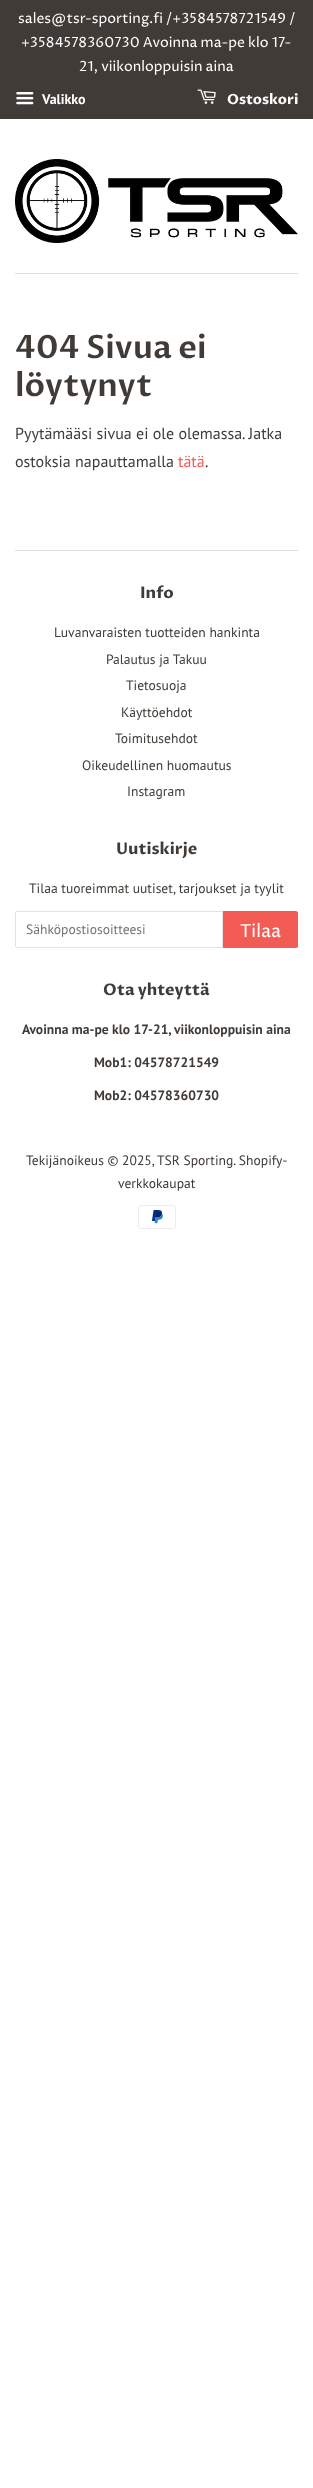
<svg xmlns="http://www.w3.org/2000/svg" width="313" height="2488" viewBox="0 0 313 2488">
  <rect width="100%" height="100%" fill="rgb(255,255,255)"/>
  <rect x="0" y="0" width="313" height="119" fill="rgb(64,59,55)"/>
  <g font-family="Proza Libre" font-size="14" fill="rgb(255,255,255)">
    <text x="18" y="23">sales@tsr-sporting.fi /+3584578721549 /</text>
    <text x="21" y="47">+3584578360730 Avoinna ma-pe klo 17-</text>
    <text x="79" y="71">21, viikonloppuisin aina</text>
  </g>
  <image x="16" y="92" width="18" height="13" href="pic1.png"/>
  <text x="42" y="104" font-family="PT Sans" font-size="14" font-weight="bold" fill="rgb(255,255,255)">Valikko</text>
  <image x="197" y="89" width="19" height="15" href="pic2.png"/>
  <text x="227" y="104" font-family="Proza Libre" font-size="14" font-weight="bold" fill="rgb(255,255,255)">Ostoskori</text>
  <rect x="15" y="273" width="283" height="1" fill="rgb(221,221,221)"/>
  <image x="15" y="159" width="283" height="84" href="pic3.png"/>
  <g font-family="Proza Libre" font-size="32" font-weight="600" fill="rgb(64,59,55)">
    <text>
      <tspan x="15" y="358">404 Sivua ei</tspan>
      <tspan x="15" y="396">löytynyt</tspan>
    </text>
  </g>
  <g font-family="PT Sans" font-size="16" fill="rgb(64,59,55)">
    <text>
      <tspan x="15" y="439">Pyytämääsi sivua ei ole olemassa. Jatka</tspan>
      <tspan x="15" y="467">ostoksia napauttamalla</tspan>
    </text>
  </g>
  <text x="178" y="467" font-family="PT Sans" font-size="16" fill="rgb(242,92,84)">tätä</text>
  <text x="205" y="467" font-family="PT Sans" font-size="16" fill="rgb(64,59,55)">.</text>
  <rect x="15" y="550" width="283" height="1" fill="rgb(221,221,221)"/>
  <text x="140" y="598" font-family="Proza Libre" font-size="16" font-weight="bold" fill="rgb(64,59,55)">Info</text>
  <g font-family="PT Sans" font-size="13.6" fill="rgb(64,59,55)">
    <text x="54" y="637">Luvanvaraisten tuotteiden hankinta</text>
    <text x="106" y="664">Palautus ja Takuu</text>
    <text x="126" y="690">Tietosuoja</text>
    <text x="121" y="717">Käyttöehdot</text>
    <text x="115" y="743">Toimitusehdot</text>
    <text x="82" y="770">Oikeudellinen huomautus</text>
    <text x="127" y="796">Instagram</text>
  </g>
  <text x="116" y="854" font-family="Proza Libre" font-size="16" font-weight="bold" fill="rgb(64,59,55)">Uutiskirje</text>
  <text x="29" y="893" font-family="PT Sans" font-size="13.6" fill="rgb(64,59,55)">Tilaa tuoreimmat uutiset, tarjoukset ja tyylit</text>
  <path d="M17 911.5H222.5V947.5H17C16 947.5 15.5 947 15.5 946V913C15.5 912 16 911.5 17 911.5Z" fill="none" stroke="rgb(226,226,225)"/>
  <text x="26" y="934" font-family="PT Sans" font-size="13.6" fill="rgb(117,117,117)">Sähköpostiosoitteesi</text>
  <path d="M223 911H296C297 911 298 912 298 913V946C298 947 297 948 296 948H223Z" fill="rgb(242,92,84)"/>
  <text x="240" y="937" font-family="Proza Libre" font-size="18" fill="rgb(255,255,255)">Tilaa</text>
  <text x="103" y="995" font-family="Proza Libre" font-size="16" font-weight="bold" fill="rgb(64,59,55)">Ota yhteyttä</text>
  <g font-family="PT Sans" font-size="13.6" font-weight="bold" fill="rgb(64,59,55)">
    <text x="22" y="1034">Avoinna ma-pe klo 17-21, viikonloppuisin aina</text>
    <text x="94" y="1067">Mob1: 04578721549</text>
    <text x="94" y="1100">Mob2: 04578360730</text>
  </g>
  <g font-family="PT Sans" font-size="13.6" fill="rgb(64,59,55)">
    <text x="26" y="1165">Tekijänoikeus © 2025,</text>
    <text x="157" y="1165">TSR Sporting. Shopify-</text>
    <text x="118" y="1188">verkkokaupat</text>
  </g>
  <image x="138" y="1205" width="38" height="24" href="pic4.png"/>
</svg>
